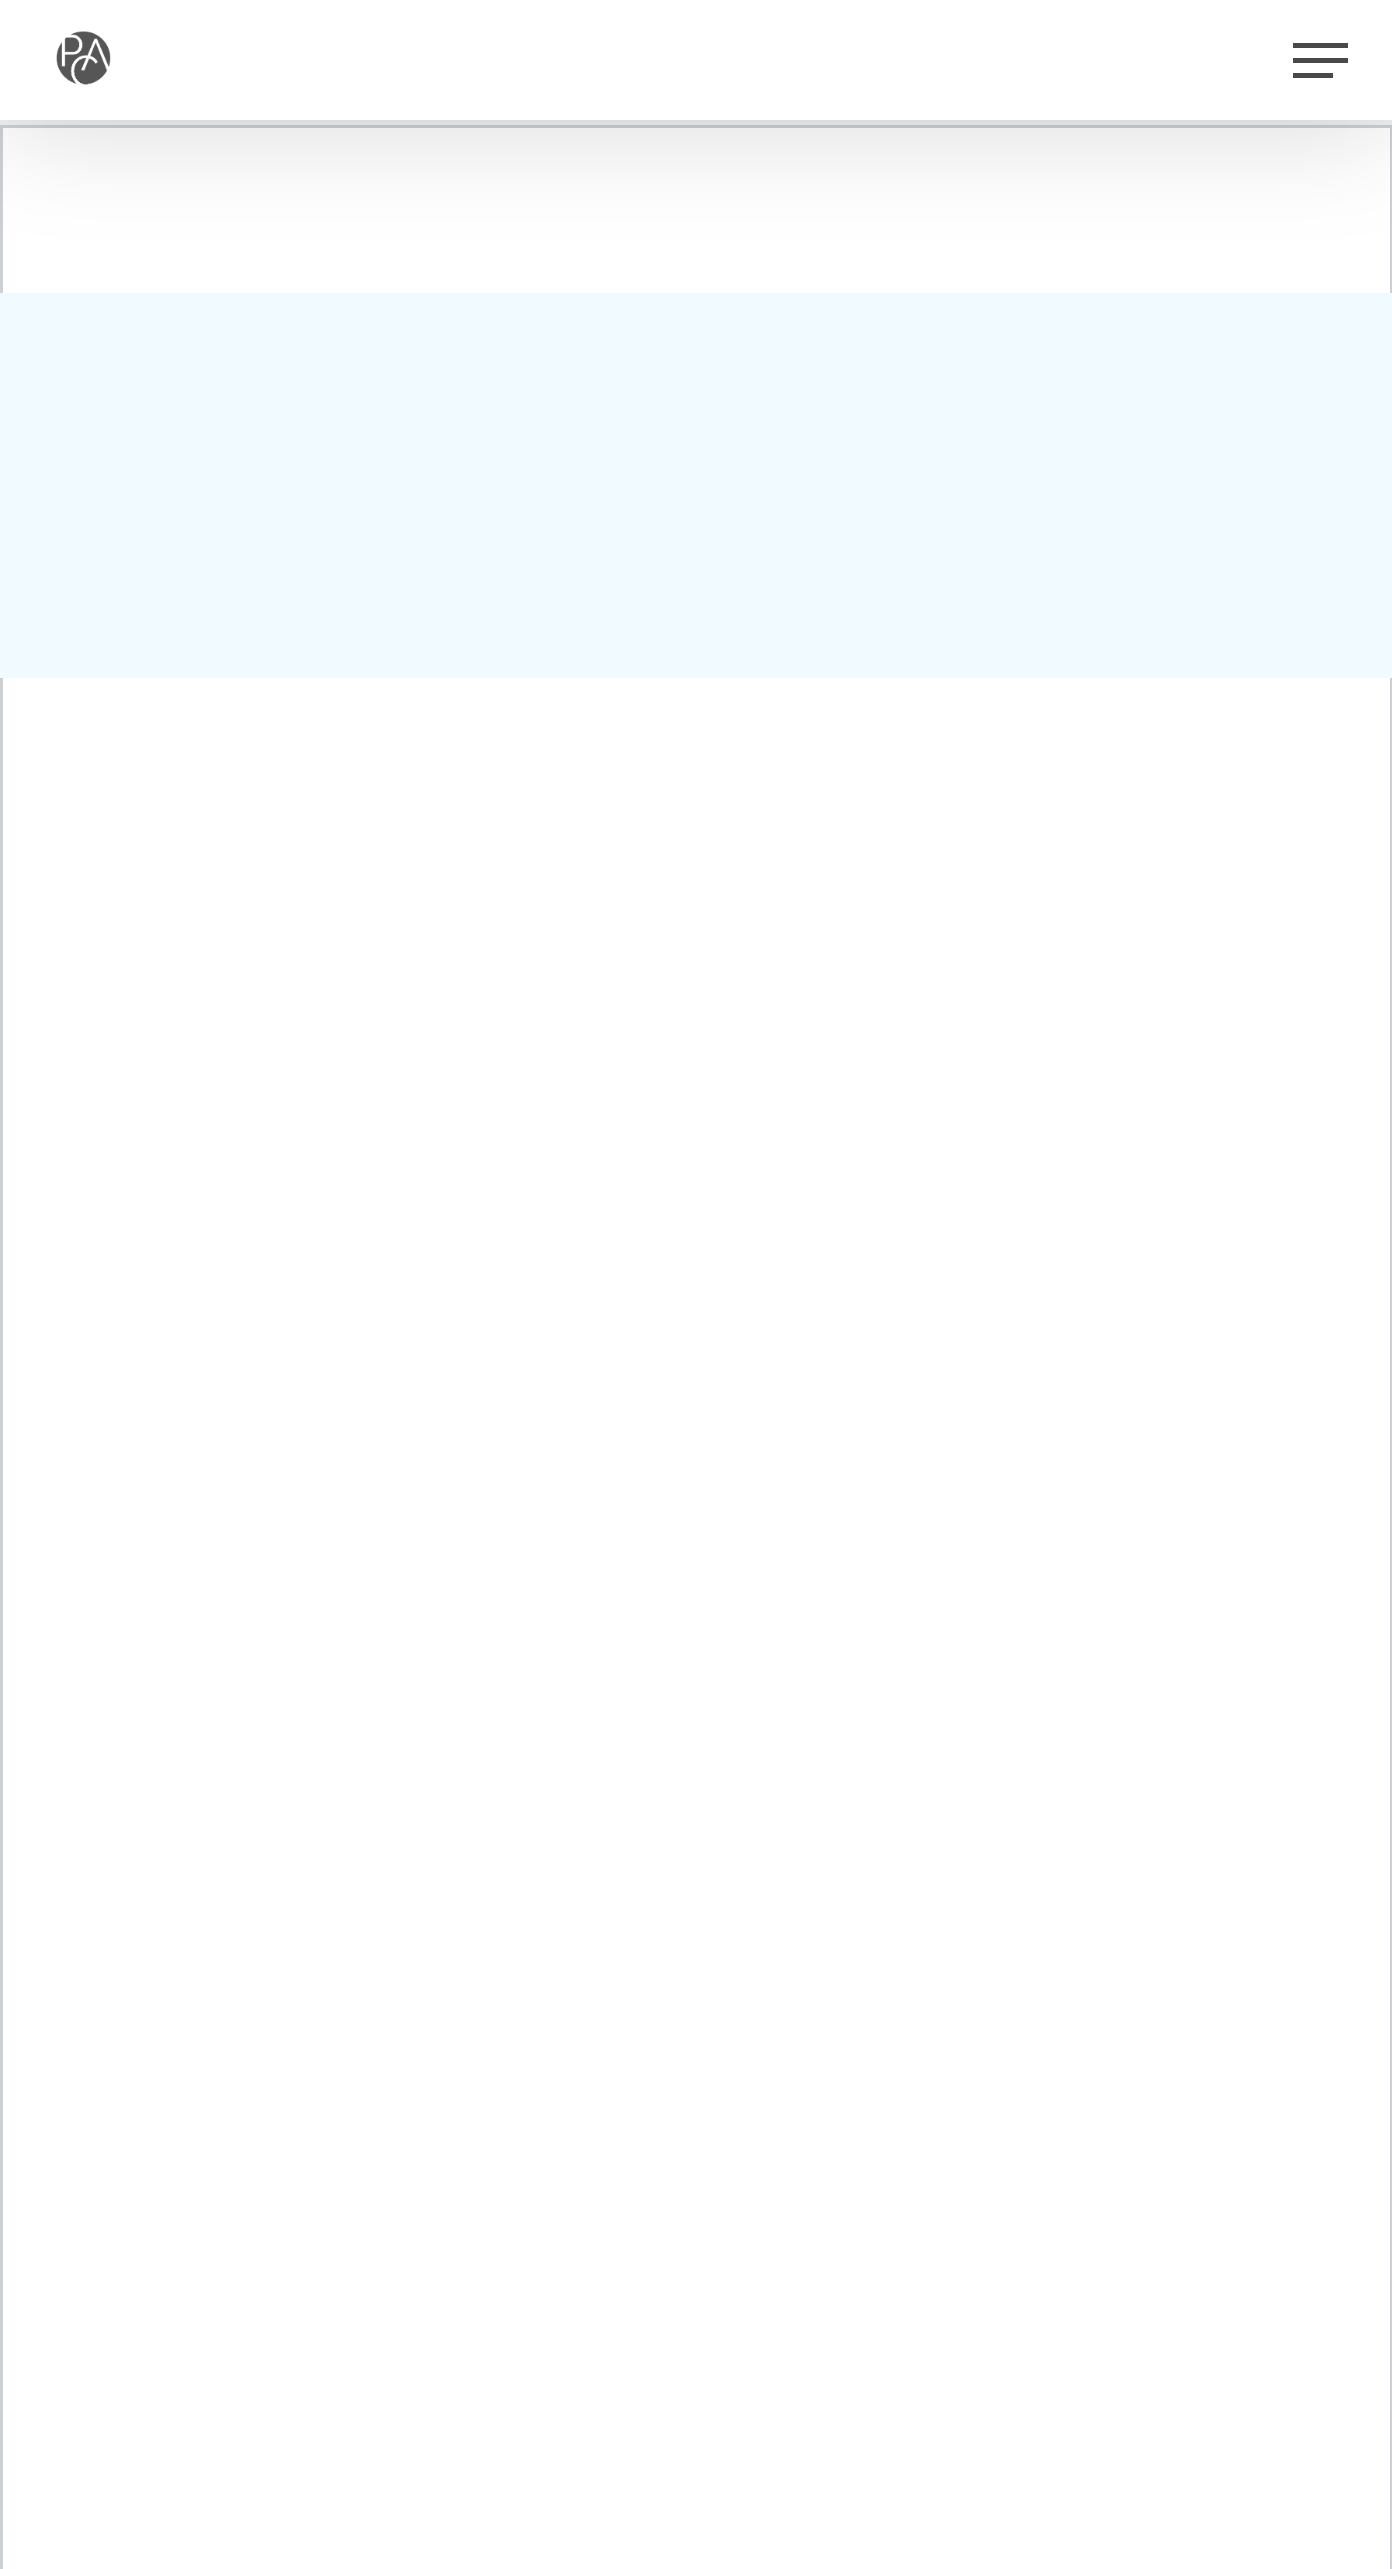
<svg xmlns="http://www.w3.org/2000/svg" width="1392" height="2569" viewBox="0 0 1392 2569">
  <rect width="100%" height="100%" fill="rgb(241,241,241)"/>
  <rect x="1.5" y="126.5" width="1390" height="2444" fill="rgb(255,255,255)" stroke="rgb(204,208,212)" stroke-width="3"/>
  <rect x="0" y="293" width="1392" height="385" fill="rgb(241,251,255)"/>
  <rect x="0" y="8" width="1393" height="120" fill="rgba(0,0,0,0.15)" filter="blur(56px)"/>
  <rect x="0" y="0" width="1392" height="120" fill="rgb(255,255,255)"/>
  <image x="56" y="31" width="55" height="54" href="pic1.png"/>
  <rect x="1293" y="43" width="55" height="5" fill="rgb(73,73,73)"/>
  <rect x="1293" y="73" width="40" height="5" fill="rgb(73,73,73)"/>
  <rect x="1293" y="58" width="55" height="5" fill="rgb(73,73,73)"/>
</svg>
